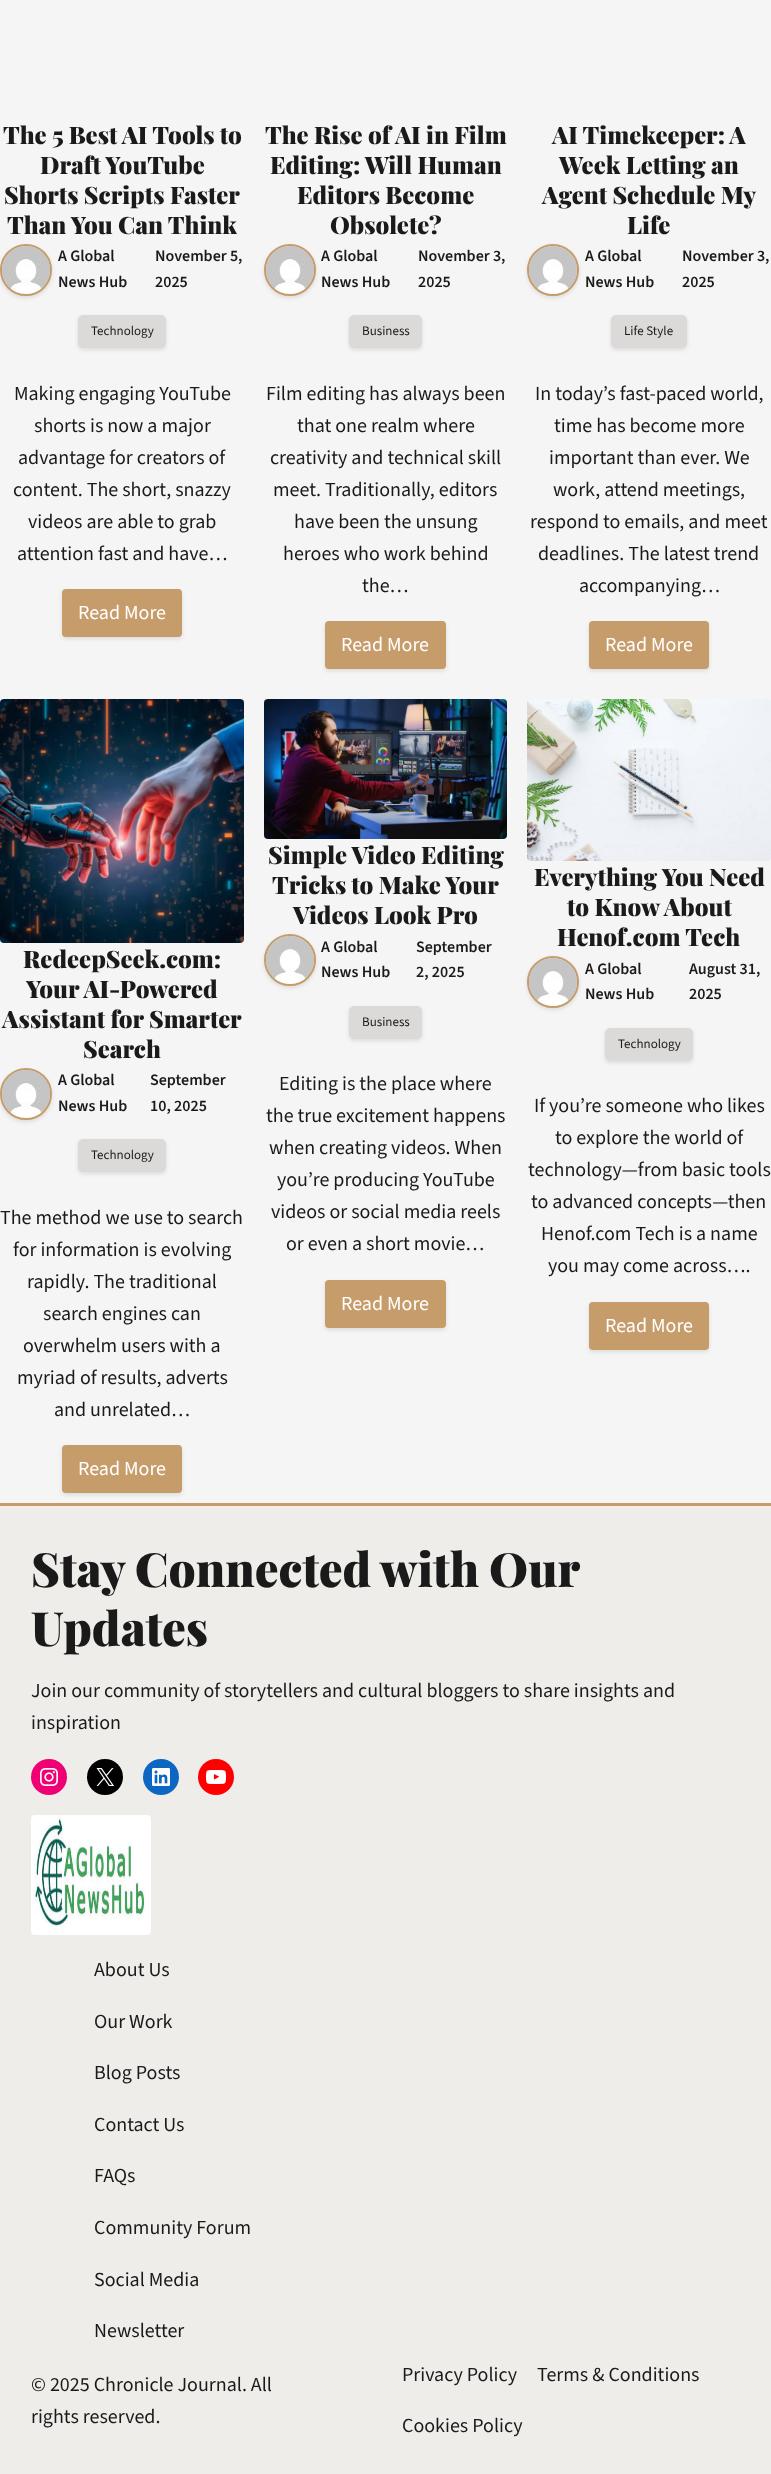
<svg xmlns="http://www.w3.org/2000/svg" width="771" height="2474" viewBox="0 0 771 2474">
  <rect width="100%" height="100%" fill="rgb(245,245,245)"/>
  <g font-family="Playfair Display" font-size="24" font-weight="900" fill="rgb(26,26,26)">
    <text x="3" y="144">The 5 Best AI Tools to</text>
    <text x="40" y="174">Draft YouTube</text>
    <text x="4" y="204">Shorts Scripts Faster</text>
    <text x="7" y="234">Than You Can Think</text>
  </g>
  <rect x="0" y="246" width="52" height="52" rx="26" fill="rgba(0,0,0,0.1)" filter="blur(2px)"/>
  <circle cx="26" cy="270" r="25" fill="none" stroke="rgb(198,156,106)" stroke-width="2"/>
  <image x="2" y="246" width="48" height="48" href="pic1.png"/>
  <g font-family="'Source Sans 3'" font-size="16" font-weight="600" fill="rgb(26,26,26)">
    <text>
      <tspan x="58" y="261">A Global</tspan>
      <tspan x="58" y="287">News Hub</tspan>
    </text>
    <text>
      <tspan x="155" y="261">November 5,</tspan>
      <tspan x="155" y="287">2025</tspan>
    </text>
  </g>
  <rect x="78" y="317" width="88" height="33" rx="5" fill="rgba(0,0,0,0.1)" filter="blur(2px)"/>
  <rect x="78.5" y="315.5" width="87" height="32" rx="4.5" fill="rgb(220,218,216)" stroke="rgb(220,218,216)"/>
  <text x="91" y="335" font-family="'Source Sans 3'" font-size="13" fill="rgb(26,26,26)">Technology</text>
  <g font-family="'Source Sans 3'" font-size="20" fill="rgb(26,26,26)">
    <text x="14" y="400">Making engaging YouTube</text>
    <text x="34" y="432">shorts is now a major</text>
    <text x="18" y="464">advantage for creators of</text>
    <text x="13" y="496">content. The short, snazzy</text>
    <text x="28" y="528">videos are able to grab</text>
    <text x="17" y="560">attention fast and have…</text>
  </g>
  <rect x="62" y="591" width="120" height="48" rx="4" fill="rgba(0,0,0,0.1)" filter="blur(2px)"/>
  <rect x="62" y="589" width="120" height="48" rx="4" fill="rgb(198,156,106)"/>
  <text x="78" y="619" font-family="'Source Sans 3'" font-size="20" fill="rgb(255,255,255)">Read More</text>
  <g font-family="Playfair Display" font-size="24" font-weight="900" fill="rgb(26,26,26)">
    <text x="265" y="144">The Rise of AI in Film</text>
    <text x="270" y="174">Editing: Will Human</text>
    <text x="297" y="204">Editors Become</text>
    <text x="330" y="234">Obsolete?</text>
  </g>
  <rect x="264" y="246" width="52" height="52" rx="26" fill="rgba(0,0,0,0.1)" filter="blur(2px)"/>
  <circle cx="290" cy="270" r="25" fill="none" stroke="rgb(198,156,106)" stroke-width="2"/>
  <image x="266" y="246" width="48" height="48" href="pic1.png"/>
  <g font-family="'Source Sans 3'" font-size="16" font-weight="600" fill="rgb(26,26,26)">
    <text>
      <tspan x="321" y="261">A Global</tspan>
      <tspan x="321" y="287">News Hub</tspan>
    </text>
    <text>
      <tspan x="418" y="261">November 3,</tspan>
      <tspan x="418" y="287">2025</tspan>
    </text>
  </g>
  <rect x="349" y="317" width="73" height="33" rx="5" fill="rgba(0,0,0,0.1)" filter="blur(2px)"/>
  <rect x="349.5" y="315.5" width="72" height="32" rx="4.5" fill="rgb(220,218,216)" stroke="rgb(220,218,216)"/>
  <text x="362" y="335" font-family="'Source Sans 3'" font-size="13" fill="rgb(26,26,26)">Business</text>
  <g font-family="'Source Sans 3'" font-size="20" fill="rgb(26,26,26)">
    <text x="266" y="400">Film editing has always been</text>
    <text x="297" y="432">that one realm where</text>
    <text x="270" y="464">creativity and technical skill</text>
    <text x="273" y="496">meet. Traditionally, editors</text>
    <text x="294" y="528">have been the unsung</text>
    <text x="283" y="560">heroes who work behind</text>
    <text x="362" y="592">the…</text>
  </g>
  <rect x="325" y="623" width="121" height="48" rx="4" fill="rgba(0,0,0,0.1)" filter="blur(2px)"/>
  <rect x="325" y="621" width="121" height="48" rx="4" fill="rgb(198,156,106)"/>
  <text x="341" y="651" font-family="'Source Sans 3'" font-size="20" fill="rgb(255,255,255)">Read More</text>
  <g font-family="Playfair Display" font-size="24" font-weight="900" fill="rgb(26,26,26)">
    <text x="552" y="144">AI Timekeeper: A</text>
    <text x="559" y="174">Week Letting an</text>
    <text x="542" y="204">Agent Schedule My</text>
    <text x="627" y="234">Life</text>
  </g>
  <rect x="527" y="246" width="52" height="52" rx="26" fill="rgba(0,0,0,0.1)" filter="blur(2px)"/>
  <circle cx="553" cy="270" r="25" fill="none" stroke="rgb(198,156,106)" stroke-width="2"/>
  <image x="529" y="246" width="48" height="48" href="pic1.png"/>
  <g font-family="'Source Sans 3'" font-size="16" font-weight="600" fill="rgb(26,26,26)">
    <text>
      <tspan x="585" y="261">A Global</tspan>
      <tspan x="585" y="287">News Hub</tspan>
    </text>
    <text>
      <tspan x="682" y="261">November 3,</tspan>
      <tspan x="682" y="287">2025</tspan>
    </text>
  </g>
  <rect x="611" y="317" width="76" height="33" rx="5" fill="rgba(0,0,0,0.1)" filter="blur(2px)"/>
  <rect x="611.5" y="315.5" width="75" height="32" rx="4.5" fill="rgb(220,218,216)" stroke="rgb(220,218,216)"/>
  <text x="624" y="335" font-family="'Source Sans 3'" font-size="13" fill="rgb(26,26,26)">Life Style</text>
  <g font-family="'Source Sans 3'" font-size="20" fill="rgb(26,26,26)">
    <text x="535" y="400">In today’s fast-paced world,</text>
    <text x="554" y="432">time has become more</text>
    <text x="549" y="464">important than ever. We</text>
    <text x="553" y="496">work, attend meetings,</text>
    <text x="530" y="528">respond to emails, and meet</text>
    <text x="538" y="560">deadlines. The latest trend</text>
    <text x="579" y="592">accompanying…</text>
  </g>
  <rect x="589" y="623" width="120" height="48" rx="4" fill="rgba(0,0,0,0.1)" filter="blur(2px)"/>
  <rect x="589" y="621" width="120" height="48" rx="4" fill="rgb(198,156,106)"/>
  <text x="605" y="651" font-family="'Source Sans 3'" font-size="20" fill="rgb(255,255,255)">Read More</text>
  <image x="0" y="699" width="244" height="244" href="pic2.png"/>
  <g font-family="Playfair Display" font-size="24" font-weight="900" fill="rgb(26,26,26)">
    <text x="23" y="968">RedeepSeek.com:</text>
    <text x="26" y="998">Your AI-Powered</text>
    <text x="2" y="1028">Assistant for Smarter</text>
    <text x="83" y="1058">Search</text>
  </g>
  <rect x="0" y="1070" width="52" height="52" rx="26" fill="rgba(0,0,0,0.1)" filter="blur(2px)"/>
  <circle cx="26" cy="1094" r="25" fill="none" stroke="rgb(198,156,106)" stroke-width="2"/>
  <image x="2" y="1070" width="48" height="48" href="pic1.png"/>
  <g font-family="'Source Sans 3'" font-size="16" font-weight="600" fill="rgb(26,26,26)">
    <text>
      <tspan x="58" y="1085">A Global</tspan>
      <tspan x="58" y="1111">News Hub</tspan>
    </text>
    <text>
      <tspan x="150" y="1085">September</tspan>
      <tspan x="150" y="1111">10, 2025</tspan>
    </text>
  </g>
  <rect x="78" y="1141" width="88" height="33" rx="5" fill="rgba(0,0,0,0.1)" filter="blur(2px)"/>
  <rect x="78.5" y="1139.5" width="87" height="32" rx="4.5" fill="rgb(220,218,216)" stroke="rgb(220,218,216)"/>
  <text x="91" y="1159" font-family="'Source Sans 3'" font-size="13" fill="rgb(26,26,26)">Technology</text>
  <g font-family="'Source Sans 3'" font-size="20" fill="rgb(26,26,26)">
    <text x="0" y="1224">The method we use to search</text>
    <text x="13" y="1256">for information is evolving</text>
    <text x="27" y="1288">rapidly. The traditional</text>
    <text x="43" y="1320">search engines can</text>
    <text x="23" y="1352">overwhelm users with a</text>
    <text x="17" y="1384">myriad of results, adverts</text>
    <text x="54" y="1416">and unrelated…</text>
  </g>
  <rect x="62" y="1447" width="120" height="48" rx="4" fill="rgba(0,0,0,0.1)" filter="blur(2px)"/>
  <rect x="62" y="1445" width="120" height="48" rx="4" fill="rgb(198,156,106)"/>
  <text x="78" y="1475" font-family="'Source Sans 3'" font-size="20" fill="rgb(255,255,255)">Read More</text>
  <image x="264" y="699" width="243" height="140" href="pic3.png"/>
  <g font-family="Playfair Display" font-size="24" font-weight="900" fill="rgb(26,26,26)">
    <text x="268" y="864">Simple Video Editing</text>
    <text x="272" y="894">Tricks to Make Your</text>
    <text x="293" y="924">Videos Look Pro</text>
  </g>
  <rect x="264" y="936" width="52" height="52" rx="26" fill="rgba(0,0,0,0.1)" filter="blur(2px)"/>
  <circle cx="290" cy="960" r="25" fill="none" stroke="rgb(198,156,106)" stroke-width="2"/>
  <image x="266" y="936" width="48" height="48" href="pic4.png"/>
  <g font-family="'Source Sans 3'" font-size="16" font-weight="600" fill="rgb(26,26,26)">
    <text>
      <tspan x="321" y="952">A Global</tspan>
      <tspan x="321" y="977">News Hub</tspan>
    </text>
    <text>
      <tspan x="416" y="952">September</tspan>
      <tspan x="416" y="977">2, 2025</tspan>
    </text>
  </g>
  <rect x="349" y="1008" width="73" height="33" rx="5" fill="rgba(0,0,0,0.1)" filter="blur(2px)"/>
  <rect x="349.5" y="1006.5" width="72" height="32" rx="4.5" fill="rgb(220,218,216)" stroke="rgb(220,218,216)"/>
  <text x="362" y="1026" font-family="'Source Sans 3'" font-size="13" fill="rgb(26,26,26)">Business</text>
  <g font-family="'Source Sans 3'" font-size="20" fill="rgb(26,26,26)">
    <text x="279" y="1090">Editing is the place where</text>
    <text x="266" y="1122">the true excitement happens</text>
    <text x="269" y="1154">when creating videos. When</text>
    <text x="277" y="1186">you’re producing YouTube</text>
    <text x="271" y="1218">videos or social media reels</text>
    <text x="286" y="1250">or even a short movie…</text>
  </g>
  <rect x="325" y="1282" width="121" height="48" rx="4" fill="rgba(0,0,0,0.1)" filter="blur(2px)"/>
  <rect x="325" y="1280" width="121" height="48" rx="4" fill="rgb(198,156,106)"/>
  <text x="341" y="1310" font-family="'Source Sans 3'" font-size="20" fill="rgb(255,255,255)">Read More</text>
  <image x="527" y="699" width="244" height="162" href="pic5.png"/>
  <g font-family="Playfair Display" font-size="24" font-weight="900" fill="rgb(26,26,26)">
    <text x="534" y="886">Everything You Need</text>
    <text x="567" y="916">to Know About</text>
    <text x="557" y="946">Henof.com Tech</text>
  </g>
  <rect x="527" y="958" width="52" height="52" rx="26" fill="rgba(0,0,0,0.1)" filter="blur(2px)"/>
  <circle cx="553" cy="982" r="25" fill="none" stroke="rgb(198,156,106)" stroke-width="2"/>
  <image x="529" y="958" width="48" height="48" href="pic1.png"/>
  <g font-family="'Source Sans 3'" font-size="16" font-weight="600" fill="rgb(26,26,26)">
    <text>
      <tspan x="585" y="974">A Global</tspan>
      <tspan x="585" y="999">News Hub</tspan>
    </text>
    <text>
      <tspan x="689" y="974">August 31,</tspan>
      <tspan x="689" y="999">2025</tspan>
    </text>
  </g>
  <rect x="605" y="1030" width="88" height="33" rx="5" fill="rgba(0,0,0,0.1)" filter="blur(2px)"/>
  <rect x="605.5" y="1028.5" width="87" height="32" rx="4.5" fill="rgb(220,218,216)" stroke="rgb(220,218,216)"/>
  <text x="618" y="1048" font-family="'Source Sans 3'" font-size="13" fill="rgb(26,26,26)">Technology</text>
  <g font-family="'Source Sans 3'" font-size="20" fill="rgb(26,26,26)">
    <text x="534" y="1112">If you’re someone who likes</text>
    <text x="555" y="1144">to explore the world of</text>
    <text x="528" y="1176">technology—from basic tools</text>
    <text x="531" y="1208">to advanced concepts—then</text>
    <text x="541" y="1240">Henof.com Tech is a name</text>
    <text x="548" y="1272">you may come across….</text>
  </g>
  <rect x="589" y="1304" width="120" height="48" rx="4" fill="rgba(0,0,0,0.1)" filter="blur(2px)"/>
  <rect x="589" y="1302" width="120" height="48" rx="4" fill="rgb(198,156,106)"/>
  <text x="605" y="1332" font-family="'Source Sans 3'" font-size="20" fill="rgb(255,255,255)">Read More</text>
  <rect x="0" y="1506" width="771" height="968" fill="rgb(239,237,234)"/>
  <rect x="0" y="1503" width="771" height="3" fill="rgb(198,156,106)"/>
  <g font-family="Playfair Display" font-size="47.25" font-weight="900" fill="rgb(26,26,26)">
    <text>
      <tspan x="31" y="1587" word-spacing="-0.5">Stay Connected with Our</tspan>
      <tspan x="31" y="1646">Updates</tspan>
    </text>
  </g>
  <g font-family="'Source Sans 3'" font-size="20" fill="rgb(26,26,26)">
    <text>
      <tspan x="31" y="1697">Join our community of storytellers and cultural bloggers to share insights and</tspan>
      <tspan x="31" y="1729">inspiration</tspan>
    </text>
  </g>
  <circle cx="49" cy="1777" r="18" fill="rgb(240,0,117)"/>
  <image x="40" y="1768" width="18" height="18" href="pic6.png"/>
  <circle cx="105" cy="1777" r="18" fill="rgb(0,0,0)"/>
  <image x="96" y="1768" width="18" height="18" href="pic7.png"/>
  <circle cx="161" cy="1777" r="18" fill="rgb(13,102,194)"/>
  <image x="152" y="1768" width="18" height="18" href="pic8.png"/>
  <circle cx="216" cy="1777" r="18" fill="rgb(255,0,0)"/>
  <image x="206" y="1770" width="20" height="14" href="pic9.png"/>
  <image x="31" y="1815" width="120" height="120" href="pic10.png"/>
  <g font-family="'Source Sans 3'" font-size="20" fill="rgb(26,26,26)">
    <text x="94" y="1976">About Us</text>
    <text x="94" y="2028">Our Work</text>
    <text x="94" y="2079">Blog Posts</text>
    <text x="94" y="2131">Contact Us</text>
    <text x="94" y="2182">FAQs</text>
    <text x="94" y="2234">Community Forum</text>
    <text x="94" y="2286">Social Media</text>
    <text x="94" y="2337">Newsletter</text>
    <text>
      <tspan x="31" y="2391">© 2025 Chronicle Journal. All</tspan>
      <tspan x="31" y="2423">rights reserved.</tspan>
    </text>
    <text x="402" y="2381">Privacy Policy</text>
    <text x="537" y="2381">Terms &amp; Conditions</text>
    <text x="402" y="2432">Cookies Policy</text>
  </g>
</svg>
